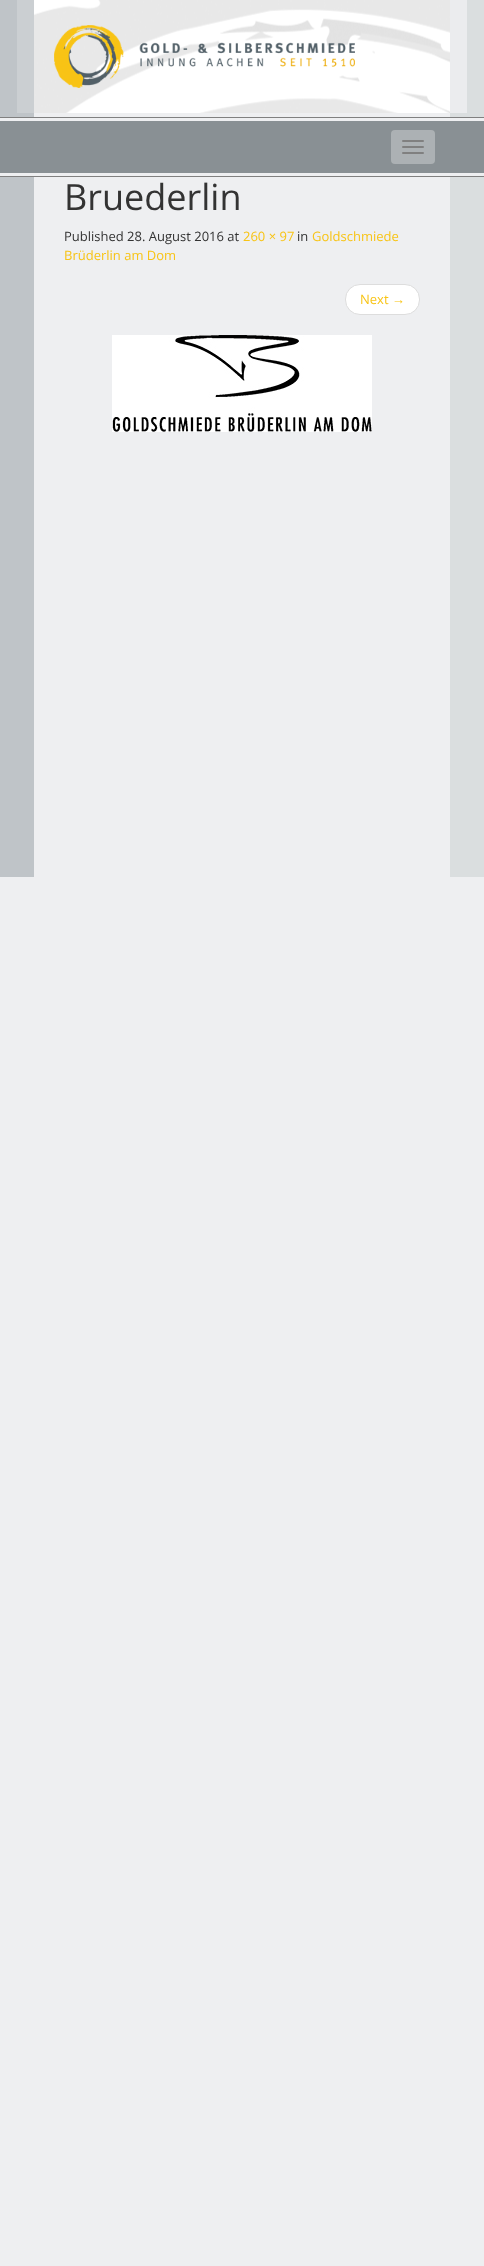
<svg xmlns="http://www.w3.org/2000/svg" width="484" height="2266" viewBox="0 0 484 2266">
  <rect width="100%" height="100%" fill="rgb(238,239,241)"/>
  <rect x="450" y="0" width="34" height="117" fill="rgb(218,222,223)"/>
  <rect x="0" y="0" width="34" height="117" fill="rgb(191,196,200)"/>
  <rect x="34" y="0" width="416" height="113" fill="rgb(255,255,255)"/>
  <image x="34" y="0" width="416" height="113" href="pic1.png"/>
  <rect x="450" y="0" width="17" height="113" fill="rgb(235,236,238)"/>
  <rect x="17" y="0" width="17" height="113" fill="rgb(203,207,210)"/>
  <image x="54" y="25" width="301" height="63" href="pic2.png"/>
  <rect x="0" y="117" width="484" height="1" fill="rgb(128,128,128)"/>
  <rect x="0" y="176" width="484" height="1" fill="rgb(128,128,128)"/>
  <rect x="0" y="121" width="484" height="52" fill="rgb(137,144,148)"/>
  <rect x="391" y="130" width="44" height="34" rx="4" fill="rgb(172,177,180)"/>
  <rect x="402" y="140" width="22" height="2" rx="1" fill="rgb(128,128,128)"/>
  <rect x="402" y="146" width="22" height="2" rx="1" fill="rgb(128,128,128)"/>
  <rect x="402" y="152" width="22" height="2" rx="1" fill="rgb(128,128,128)"/>
  <rect x="450" y="177" width="34" height="700" fill="rgb(218,222,223)"/>
  <rect x="0" y="177" width="34" height="700" fill="rgb(191,196,200)"/>
  <text x="64" y="210" font-family="Open Sans" font-size="36" fill="rgb(51,51,51)">Bruederlin</text>
  <text x="64" y="241" font-family="Open Sans" font-size="13" fill="rgb(51,51,51)">Published 28. August 2016 at</text>
  <text x="243" y="241" font-family="Open Sans" font-size="13" fill="rgb(248,196,22)">260 × 97</text>
  <text x="297" y="241" font-family="Open Sans" font-size="13" fill="rgb(51,51,51)">in</text>
  <g font-family="Open Sans" font-size="13" fill="rgb(248,196,22)">
    <text x="312" y="241">Goldschmiede</text>
    <text x="64" y="260">Brüderlin am Dom</text>
  </g>
  <rect x="345.5" y="284.5" width="74" height="30" rx="14.5" fill="rgb(255,255,255)" stroke="rgb(221,221,221)"/>
  <text x="360" y="304" font-family="Open Sans" font-size="13" fill="rgb(248,196,22)">Next</text>
  <text x="392" y="304" font-family="Liberation Serif" font-size="13" fill="rgb(248,196,22)">→</text>
  <image x="112" y="335" width="260" height="97" href="pic3.png"/>
</svg>
